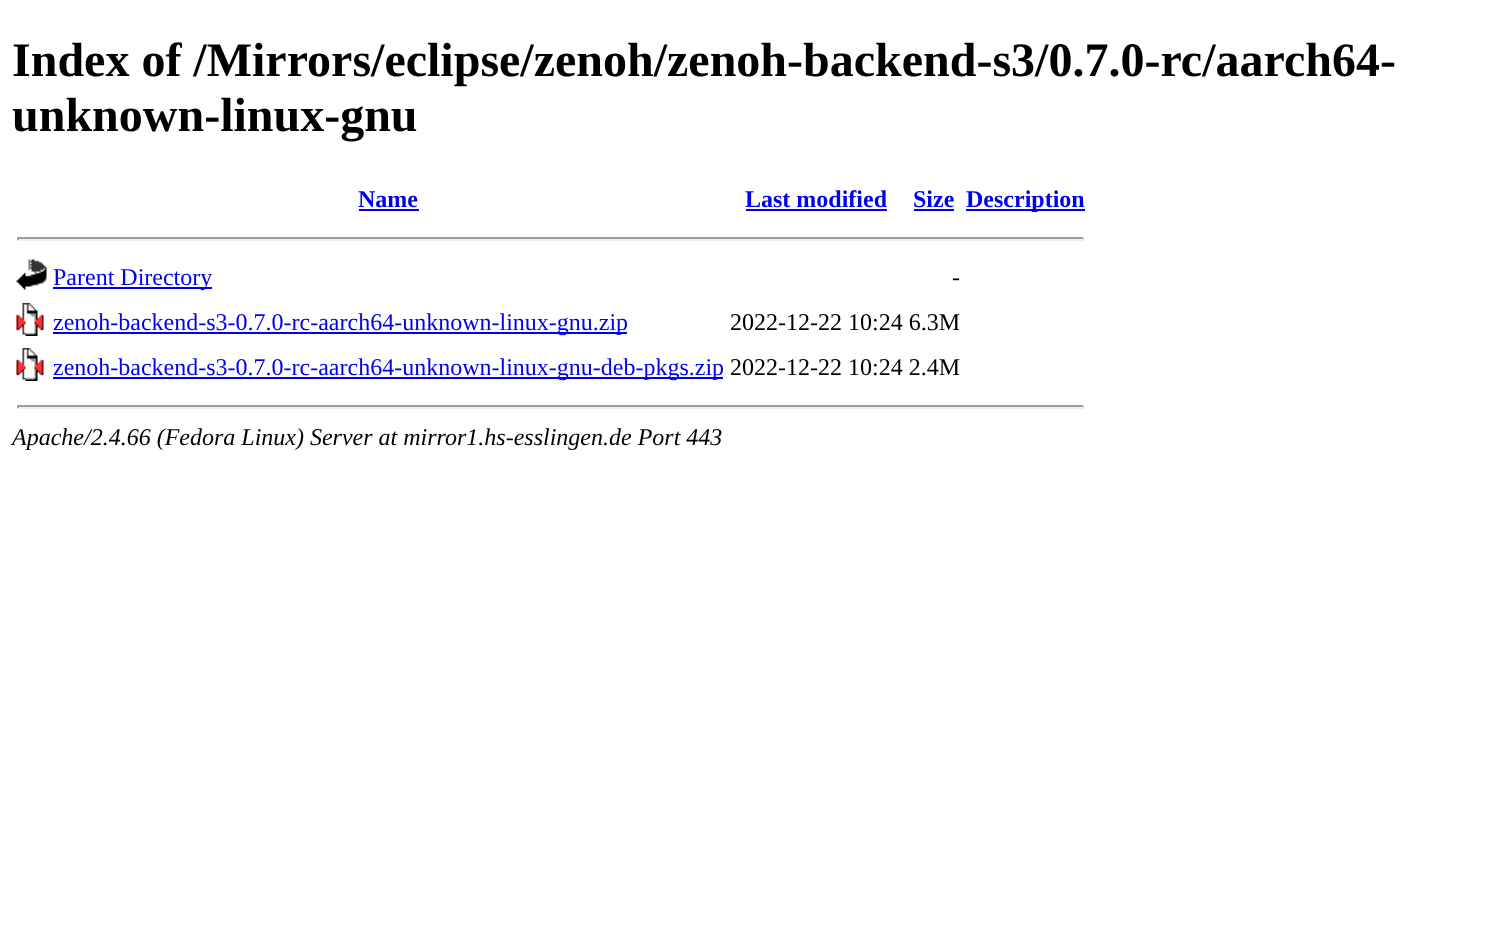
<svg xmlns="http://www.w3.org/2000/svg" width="1491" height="936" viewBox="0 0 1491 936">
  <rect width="100%" height="100%" fill="rgb(255,255,255)"/>
  <g font-family="Liberation Serif" font-size="48" font-weight="bold" fill="rgb(0,0,0)">
    <text>
      <tspan x="12" y="76">Index of /Mirrors/eclipse/zenoh/zenoh-backend-s3/0.7.0-rc/aarch64-</tspan>
      <tspan x="12" y="131">unknown-linux-gnu</tspan>
    </text>
  </g>
  <text x="358" y="207" font-family="Liberation Serif" font-size="24" font-weight="bold" fill="rgb(0,0,238)">Name</text>
  <rect x="359" y="209" width="60" height="2" fill="rgb(0,0,238)"/>
  <text x="745" y="207" font-family="Liberation Serif" font-size="24" font-weight="bold" fill="rgb(0,0,238)">Last modified</text>
  <rect x="746" y="209" width="141" height="2" fill="rgb(0,0,238)"/>
  <text x="913" y="207" font-family="Liberation Serif" font-size="24" font-weight="bold" fill="rgb(0,0,238)">Size</text>
  <rect x="914" y="209" width="40" height="2" fill="rgb(0,0,238)"/>
  <rect x="966" y="209" width="119" height="2" fill="rgb(0,0,238)"/>
  <text x="966" y="207" font-family="Liberation Serif" font-size="24" font-weight="bold" fill="rgb(0,0,238)">Description</text>
  <rect x="17" y="237" width="1068" height="2" fill="rgb(159,159,159)"/>
  <rect x="1083" y="237" width="2" height="3" fill="rgb(238,238,238)"/>
  <rect x="17" y="239" width="1068" height="2" fill="rgb(238,238,238)"/>
  <rect x="17" y="237" width="2" height="3" fill="rgb(159,159,159)"/>
  <image x="16" y="259" width="31" height="31" href="pic1.png"/>
  <rect x="53" y="287" width="159" height="2" fill="rgb(0,0,238)"/>
  <text x="53" y="285" font-family="Liberation Serif" font-size="24" fill="rgb(0,0,238)">Parent Directory</text>
  <text x="952" y="285" font-family="Liberation Serif" font-size="24" fill="rgb(0,0,0)">-</text>
  <image x="16" y="303" width="28" height="33" href="pic2.png"/>
  <rect x="53" y="332" width="574" height="2" fill="rgb(0,0,238)"/>
  <text x="53" y="330" font-family="Liberation Serif" font-size="24" fill="rgb(0,0,238)">zenoh-backend-s3-0.7.0-rc-aarch64-unknown-linux-gnu.zip</text>
  <text x="730" y="330" font-family="Liberation Serif" font-size="24" fill="rgb(0,0,0)">2022-12-22 10:24 6.3M</text>
  <image x="16" y="348" width="28" height="33" href="pic2.png"/>
  <rect x="53" y="377" width="670" height="2" fill="rgb(0,0,238)"/>
  <text x="53" y="375" font-family="Liberation Serif" font-size="24" fill="rgb(0,0,238)">zenoh-backend-s3-0.7.0-rc-aarch64-unknown-linux-gnu-deb-pkgs.zip</text>
  <text x="730" y="375" font-family="Liberation Serif" font-size="24" fill="rgb(0,0,0)">2022-12-22 10:24 2.4M</text>
  <rect x="17" y="405" width="1068" height="2" fill="rgb(159,159,159)"/>
  <rect x="1083" y="405" width="2" height="3" fill="rgb(238,238,238)"/>
  <rect x="17" y="407" width="1068" height="2" fill="rgb(238,238,238)"/>
  <rect x="17" y="405" width="2" height="3" fill="rgb(159,159,159)"/>
  <text x="12" y="445" font-family="Liberation Serif" font-size="24" font-style="italic" fill="rgb(0,0,0)">Apache/2.4.66 (Fedora Linux) Server at mirror1.hs-esslingen.de Port 443</text>
</svg>
